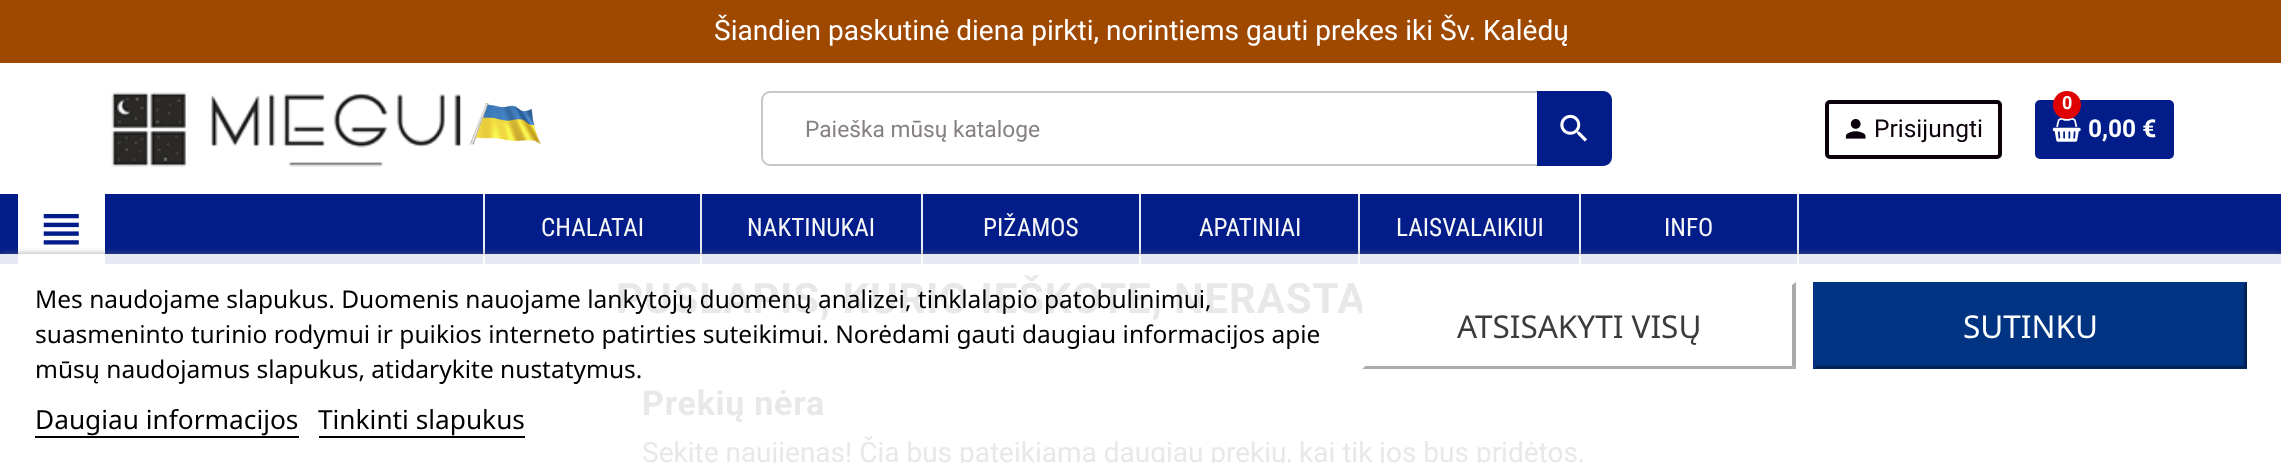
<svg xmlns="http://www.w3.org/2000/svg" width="2281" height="463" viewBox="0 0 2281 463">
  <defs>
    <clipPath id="clip1"><rect x="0" y="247" width="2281" height="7"/></clipPath>
  </defs>
  <rect width="100%" height="100%" fill="rgb(255,255,255)"/>
  <rect x="0" y="0" width="2281" height="63" fill="rgb(159,72,0)"/>
  <text x="714" y="40" font-family="Roboto" font-size="28" fill="rgb(255,255,255)">Šiandien paskutinė diena pirkti, norintiems gauti prekes iki Šv. Kalėdų</text>
  <image x="111" y="92" width="350" height="75" href="pic1.png"/>
  <image x="469" y="103" width="72" height="42" href="pic2.png"/>
  <rect x="762" y="92" width="847" height="73" rx="8" fill="none" stroke="rgb(199,199,199)" stroke-width="2"/>
  <text x="805" y="137" font-family="Roboto" font-size="22.75" fill="rgb(134,128,133)">Paieška mūsų kataloge</text>
  <path d="M1537 91H1603C1608 91 1612 95 1612 100V157C1612 162 1608 166 1603 166H1537Z" fill="rgb(2,29,137)"/>
  <image x="1560" y="114" width="27" height="28" href="pic3.png"/>
  <rect x="1827" y="102" width="173" height="55" rx="3" fill="none" stroke="rgb(12,0,11)" stroke-width="4"/>
  <image x="1845" y="119" width="21" height="20" href="pic4.png"/>
  <text x="1874" y="137" font-family="Roboto" font-size="24.5" fill="rgb(12,0,11)">Prisijungti</text>
  <rect x="2035" y="100" width="139" height="59" rx="5" fill="rgb(2,29,137)"/>
  <image x="2052" y="118" width="29" height="24" href="pic5.png"/>
  <circle cx="2067" cy="105" r="14" fill="rgb(222,2,2)"/>
  <text x="2062" y="109" font-family="'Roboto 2'" font-size="18" font-weight="bold" fill="rgb(255,255,255)">0</text>
  <text x="2088" y="137" font-family="'Roboto 2'" font-size="24.5" font-weight="bold" fill="rgb(255,255,255)">0,00 €</text>
  <rect x="0" y="194" width="2281" height="60" fill="rgb(2,29,137)"/>
  <rect x="0" y="254" width="2281" height="10" fill="rgb(230,232,243)"/>
  <rect x="18" y="194" width="87" height="70" fill="rgb(255,255,255)"/>
  <image x="43" y="213" width="36" height="32" href="pic6.png"/>
  <rect x="700" y="194" width="2" height="60" fill="rgb(233,236,239)"/>
  <rect x="700" y="254" width="2" height="10" fill="rgb(253,253,253)"/>
  <rect x="483" y="194" width="2" height="60" fill="rgb(233,236,239)"/>
  <rect x="483" y="254" width="2" height="10" fill="rgb(253,253,253)"/>
  <text x="541" y="236" font-family="Roboto Condensed" font-size="25.25" fill="rgb(247,247,247)">CHALATAI</text>
  <rect x="921" y="194" width="2" height="60" fill="rgb(233,236,239)"/>
  <rect x="921" y="254" width="2" height="10" fill="rgb(253,253,253)"/>
  <text x="747" y="236" font-family="Roboto Condensed" font-size="25.25" fill="rgb(247,247,247)">NAKTINUKAI</text>
  <rect x="1139" y="194" width="2" height="60" fill="rgb(233,236,239)"/>
  <rect x="1139" y="254" width="2" height="10" fill="rgb(253,253,253)"/>
  <text x="983" y="236" font-family="Roboto Condensed" font-size="25.25" fill="rgb(247,247,247)">PIŽAMOS</text>
  <rect x="1358" y="194" width="2" height="60" fill="rgb(233,236,239)"/>
  <rect x="1358" y="254" width="2" height="10" fill="rgb(253,253,253)"/>
  <text x="1199" y="236" font-family="Roboto Condensed" font-size="25.25" fill="rgb(247,247,247)">APATINIAI</text>
  <rect x="1579" y="194" width="2" height="60" fill="rgb(233,236,239)"/>
  <rect x="1579" y="254" width="2" height="10" fill="rgb(253,253,253)"/>
  <text x="1396" y="236" font-family="Roboto Condensed" font-size="25.25" fill="rgb(247,247,247)">LAISVALAIKIUI</text>
  <rect x="1797" y="194" width="2" height="60" fill="rgb(233,236,239)"/>
  <rect x="1797" y="254" width="2" height="10" fill="rgb(253,253,253)"/>
  <text x="1664" y="236" font-family="Roboto Condensed" font-size="25.25" fill="rgb(247,247,247)">INFO</text>
  <text x="616" y="313" font-family="Roboto" font-size="42" font-weight="bold" letter-spacing="0.85" fill="rgb(232,232,232)">PUSLAPIS, KURIO IEŠKOTE, NERASTA</text>
  <text x="642" y="415" font-family="Roboto" font-size="34" font-weight="bold" letter-spacing="0.75" fill="rgb(232,232,232)">Prekių nėra</text>
  <text x="642" y="462" font-family="Roboto" font-size="28" fill="rgb(232,232,232)">Sekite naujienas! Čia bus pateikiama daugiau prekių, kai tik jos bus pridėtos.</text>
  <g clip-path="url(#clip1)">
    <rect x="0" y="256" width="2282" height="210" fill="rgb(112,112,112)" filter="blur(4.5px)"/>
  </g>
  <g font-family="Noto Sans" font-size="24.5" fill="rgb(0,0,0)">
    <text>
      <tspan x="35" y="308">Mes naudojame slapukus. Duomenis nauojame lankytojų duomenų analizei, tinklalapio patobulinimui,</tspan>
      <tspan x="35" y="343">suasmeninto turinio rodymui ir puikios interneto patirties suteikimui. Norėdami gauti daugiau informacijos apie</tspan>
      <tspan x="35" y="378">mūsų naudojamus slapukus, atidarykite nustatymus.</tspan>
    </text>
  </g>
  <text x="35" y="429" font-family="Noto Sans" font-size="26.25" fill="rgb(0,0,0)">Daugiau informacijos</text>
  <rect x="35" y="436" width="264" height="2" fill="rgb(0,0,0)"/>
  <text x="318" y="429" font-family="Noto Sans" font-size="26.25" fill="rgb(0,0,0)">Tinkinti slapukus</text>
  <rect x="319" y="436" width="206" height="2" fill="rgb(0,0,0)"/>
  <rect x="1362" y="305" width="3" height="8" fill="rgb(255,255,255)"/>
  <path d="M1796 282V369L1792 366V285Z" fill="rgb(170,170,170)"/>
  <path d="M1796 369H1362L1365 366H1792Z" fill="rgb(170,170,170)"/>
  <path d="M1362 369V282L1365 285V366Z" fill="rgb(255,255,255)"/>
  <text x="1457" y="338" font-family="Noto Sans" font-size="31.5" fill="rgb(59,59,59)">ATSISAKYTI VISŲ</text>
  <rect x="1813" y="282" width="434" height="87" fill="rgb(0,51,130)"/>
  <path d="M2247 282V369L2244 366V285Z" fill="rgb(0,34,87)"/>
  <path d="M2247 369H1813L1816 366H2244Z" fill="rgb(0,34,87)"/>
  <path d="M1813 369V282L1816 285V366Z" fill="rgb(0,51,130)"/>
  <text x="1963" y="338" font-family="Noto Sans" font-size="31.5" fill="rgb(255,255,255)">SUTINKU</text>
</svg>
